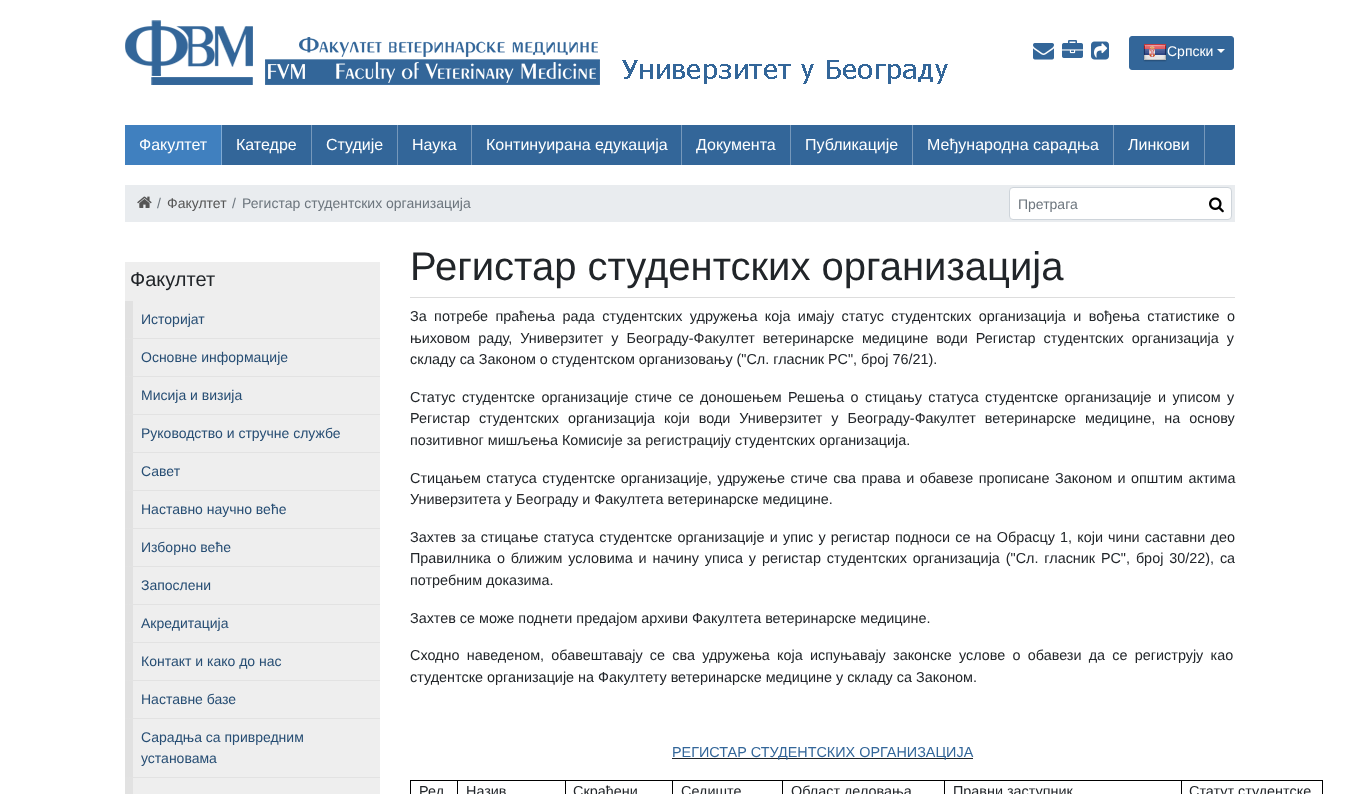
<svg xmlns="http://www.w3.org/2000/svg" width="1360" height="794" viewBox="0 0 1360 794">
  <rect width="100%" height="100%" fill="rgb(255,255,255)"/>
  <image x="125" y="20" width="823" height="65" href="pic1.png"/>
  <image x="1033" y="43" width="21" height="17" href="pic2.png"/>
  <image x="1062" y="40" width="21" height="18" href="pic3.png"/>
  <image x="1091" y="41" width="18" height="19" href="pic4.png"/>
  <rect x="1129.5" y="36.5" width="104" height="33" rx="2.5" fill="rgb(51,102,153)" stroke="rgb(51,102,153)"/>
  <image x="1143" y="44" width="24" height="18" href="pic5.png"/>
  <text x="1167" y="56" font-family="Liberation Sans" font-size="14" fill="rgb(255,255,255)">Српски</text>
  <path d="M1217 49H1225L1221 53Z" fill="rgb(255,255,255)"/>
  <rect x="222" y="125" width="1013" height="40" fill="rgb(51,102,153)"/>
  <rect x="125" y="125" width="96" height="40" fill="rgb(64,128,191)"/>
  <rect x="221" y="125" width="1" height="40" fill="rgb(127,170,212)"/>
  <text x="139" y="150" font-family="Liberation Sans" font-size="16" fill="rgb(255,255,255)">Факултет</text>
  <rect x="311" y="125" width="1" height="40" fill="rgb(118,152,187)"/>
  <text x="236" y="150" font-family="Liberation Sans" font-size="16" fill="rgb(255,255,255)">Катедре</text>
  <rect x="397" y="125" width="1" height="40" fill="rgb(118,152,187)"/>
  <text x="326" y="150" font-family="Liberation Sans" font-size="16" fill="rgb(255,255,255)">Студије</text>
  <rect x="471" y="125" width="1" height="40" fill="rgb(118,152,187)"/>
  <text x="412" y="150" font-family="Liberation Sans" font-size="16" fill="rgb(255,255,255)">Наука</text>
  <rect x="681" y="125" width="1" height="40" fill="rgb(118,152,187)"/>
  <text x="486" y="150" font-family="Liberation Sans" font-size="16" fill="rgb(255,255,255)">Континуирана едукација</text>
  <rect x="790" y="125" width="1" height="40" fill="rgb(118,152,187)"/>
  <text x="696" y="150" font-family="Liberation Sans" font-size="16" fill="rgb(255,255,255)">Документа</text>
  <rect x="912" y="125" width="1" height="40" fill="rgb(118,152,187)"/>
  <text x="805" y="150" font-family="Liberation Sans" font-size="16" fill="rgb(255,255,255)">Публикације</text>
  <rect x="1113" y="125" width="1" height="40" fill="rgb(118,152,187)"/>
  <text x="927" y="150" font-family="Liberation Sans" font-size="16" fill="rgb(255,255,255)">Међународна сарадња</text>
  <rect x="1204" y="125" width="1" height="40" fill="rgb(118,152,187)"/>
  <text x="1128" y="150" font-family="Liberation Sans" font-size="16" fill="rgb(255,255,255)">Линкови</text>
  <rect x="125" y="185" width="1110" height="37" fill="rgb(233,236,239)"/>
  <image x="137" y="196" width="15" height="12" href="pic6.png"/>
  <text x="157" y="208" font-family="Liberation Sans" font-size="14" fill="rgb(108,117,125)">/</text>
  <text x="167" y="208" font-family="Liberation Sans" font-size="14" fill="rgb(85,85,85)">Факултет</text>
  <g font-family="Liberation Sans" font-size="14" fill="rgb(108,117,125)">
    <text x="232" y="208">/</text>
    <text x="242" y="208">Регистар студентских организација</text>
  </g>
  <rect x="1009.5" y="187.5" width="222" height="32" rx="3.5" fill="rgb(255,255,255)" stroke="rgb(206,212,218)"/>
  <text x="1018" y="209" font-family="Liberation Sans" font-size="14" fill="rgb(108,117,125)">Претрага</text>
  <image x="1209" y="197" width="15" height="16" href="pic7.png"/>
  <rect x="125" y="262" width="255" height="532" fill="rgb(238,238,238)"/>
  <text x="130" y="286" font-family="Liberation Sans" font-size="20" fill="rgb(33,37,41)">Факултет</text>
  <path d="M380 339H125L133 338H380Z" fill="rgb(226,226,226)"/>
  <path d="M125 339V301H133V338Z" fill="rgba(0,0,0,0.05)"/>
  <text x="141" y="324" font-family="Liberation Sans" font-size="14" fill="rgb(38,77,115)">Историјат</text>
  <path d="M380 377H125L133 376H380Z" fill="rgb(226,226,226)"/>
  <path d="M125 377V339H133V376Z" fill="rgba(0,0,0,0.05)"/>
  <text x="141" y="362" font-family="Liberation Sans" font-size="14" fill="rgb(38,77,115)">Основне информације</text>
  <path d="M380 415H125L133 414H380Z" fill="rgb(226,226,226)"/>
  <path d="M125 415V377H133V414Z" fill="rgba(0,0,0,0.05)"/>
  <text x="141" y="400" font-family="Liberation Sans" font-size="14" fill="rgb(38,77,115)">Мисија и визија</text>
  <path d="M380 453H125L133 452H380Z" fill="rgb(226,226,226)"/>
  <path d="M125 453V415H133V452Z" fill="rgba(0,0,0,0.05)"/>
  <text x="141" y="438" font-family="Liberation Sans" font-size="14" fill="rgb(38,77,115)">Руководство и стручне службе</text>
  <path d="M380 491H125L133 490H380Z" fill="rgb(226,226,226)"/>
  <path d="M125 491V453H133V490Z" fill="rgba(0,0,0,0.05)"/>
  <text x="141" y="476" font-family="Liberation Sans" font-size="14" fill="rgb(38,77,115)">Савет</text>
  <path d="M380 529H125L133 528H380Z" fill="rgb(226,226,226)"/>
  <path d="M125 529V491H133V528Z" fill="rgba(0,0,0,0.05)"/>
  <text x="141" y="514" font-family="Liberation Sans" font-size="14" fill="rgb(38,77,115)">Наставно научно веће</text>
  <path d="M380 567H125L133 566H380Z" fill="rgb(226,226,226)"/>
  <path d="M125 567V529H133V566Z" fill="rgba(0,0,0,0.05)"/>
  <text x="141" y="552" font-family="Liberation Sans" font-size="14" fill="rgb(38,77,115)">Изборно веће</text>
  <path d="M380 605H125L133 604H380Z" fill="rgb(226,226,226)"/>
  <path d="M125 605V567H133V604Z" fill="rgba(0,0,0,0.05)"/>
  <text x="141" y="590" font-family="Liberation Sans" font-size="14" fill="rgb(38,77,115)">Запослени</text>
  <path d="M380 643H125L133 642H380Z" fill="rgb(226,226,226)"/>
  <path d="M125 643V605H133V642Z" fill="rgba(0,0,0,0.05)"/>
  <text x="141" y="628" font-family="Liberation Sans" font-size="14" fill="rgb(38,77,115)">Акредитација</text>
  <path d="M380 681H125L133 680H380Z" fill="rgb(226,226,226)"/>
  <path d="M125 681V643H133V680Z" fill="rgba(0,0,0,0.05)"/>
  <text x="141" y="666" font-family="Liberation Sans" font-size="14" fill="rgb(38,77,115)">Контакт и како до нас</text>
  <path d="M380 719H125L133 718H380Z" fill="rgb(226,226,226)"/>
  <path d="M125 719V681H133V718Z" fill="rgba(0,0,0,0.05)"/>
  <text x="141" y="704" font-family="Liberation Sans" font-size="14" fill="rgb(38,77,115)">Наставне базе</text>
  <path d="M380 778H125L133 777H380Z" fill="rgb(226,226,226)"/>
  <path d="M125 778V719H133V777Z" fill="rgba(0,0,0,0.05)"/>
  <g font-family="Liberation Sans" font-size="14" fill="rgb(38,77,115)">
    <text>
      <tspan x="141" y="742">Сарадња са привредним</tspan>
      <tspan x="141" y="763">установама</tspan>
    </text>
  </g>
  <path d="M125 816V778H133V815Z" fill="rgb(226,226,226)"/>
  <rect x="410" y="297" width="825" height="1" fill="rgb(221,221,221)"/>
  <text x="410" y="280" font-family="Liberation Sans" font-size="40" fill="rgb(33,37,41)">Регистар студентских организација</text>
  <g font-family="Liberation Sans" font-size="14.4" fill="rgb(33,37,41)">
    <text>
      <tspan x="410" y="321" word-spacing="3.4">За потребе праћења рада студентских удружења која имају статус студентских организација и вођења статистике о</tspan>
      <tspan x="410" y="343" word-spacing="4">њиховом раду, Универзитет у Београду-Факултет ветеринарске медицине води Регистар студентских организација у</tspan>
      <tspan x="410" y="364">складу са Законом о студентском организовању ("Сл. гласник РС", број 76/21).</tspan>
    </text>
    <text>
      <tspan x="410" y="402" word-spacing="2.4">Статус студентске организације стиче се доношењем Решења о стицању статуса студентске организације и уписом у</tspan>
      <tspan x="410" y="423" word-spacing="5">Регистар студентских организација који води Универзитет у Београду-Факултет ветеринарске медицине, на основу</tspan>
      <tspan x="410" y="445">позитивног мишљења Комисије за регистрацију студентских организација.</tspan>
    </text>
    <text>
      <tspan x="410" y="483" word-spacing="1.5">Стицањем статуса студентске организације, удружење стиче сва права и обавезе прописане Законом и општим актима</tspan>
      <tspan x="410" y="504">Универзитета у Београду и Факултета ветеринарске медицине.</tspan>
    </text>
    <text>
      <tspan x="410" y="542" word-spacing="1.2">Захтев за стицање статуса студентске организације и упис у регистар подноси се на Обрасцу 1, који чини саставни део</tspan>
      <tspan x="410" y="563" word-spacing="1.9">Правилника о ближим условима и начину уписа у регистар студентских организација ("Сл. гласник РС", број 30/22), са</tspan>
      <tspan x="410" y="585">потребним доказима.</tspan>
    </text>
    <text x="410" y="623">Захтев се може поднети предајом архиви Факултета ветеринарске медицине.</text>
    <text>
      <tspan x="410" y="660" word-spacing="3.25">Сходно наведеном, обавештавају се сва удружења која испуњавају законске услове о обавези да се региструју као</tspan>
      <tspan x="410" y="682">студентске организације на Факултету ветеринарске медицине у складу са Законом.</tspan>
    </text>
  </g>
  <rect x="672" y="758" width="301" height="1" fill="rgb(33,37,41)"/>
  <text x="672" y="757" font-family="Liberation Sans" font-size="14.4" fill="rgb(51,102,153)">РЕГИСТАР СТУДЕНТСКИХ ОРГАНИЗАЦИЈА</text>
  <rect x="1181" y="780" width="142" height="1" fill="rgb(0,0,0)"/>
  <rect x="1181" y="780" width="1" height="14" fill="rgb(0,0,0)"/>
  <rect x="944" y="780" width="238" height="1" fill="rgb(0,0,0)"/>
  <rect x="944" y="780" width="1" height="14" fill="rgb(0,0,0)"/>
  <rect x="782" y="780" width="163" height="1" fill="rgb(0,0,0)"/>
  <rect x="782" y="780" width="1" height="14" fill="rgb(0,0,0)"/>
  <rect x="672" y="780" width="111" height="1" fill="rgb(0,0,0)"/>
  <rect x="672" y="780" width="1" height="14" fill="rgb(0,0,0)"/>
  <rect x="565" y="780" width="108" height="1" fill="rgb(0,0,0)"/>
  <rect x="565" y="780" width="1" height="14" fill="rgb(0,0,0)"/>
  <rect x="457" y="780" width="109" height="1" fill="rgb(0,0,0)"/>
  <rect x="457" y="780" width="1" height="14" fill="rgb(0,0,0)"/>
  <rect x="410" y="780" width="48" height="1" fill="rgb(0,0,0)"/>
  <rect x="410" y="780" width="1" height="14" fill="rgb(0,0,0)"/>
  <g font-family="Liberation Sans" font-size="14.4" fill="rgb(33,37,41)">
    <text x="419" y="796">Ред</text>
    <text x="466" y="796">Назив</text>
    <text x="573" y="796">Скраћени</text>
    <text x="681" y="796">Седиште</text>
    <text x="791" y="796">Област деловања</text>
    <text x="953" y="796">Правни заступник</text>
  </g>
  <rect x="1322" y="780" width="1" height="14" fill="rgb(0,0,0)"/>
  <text x="1189" y="796" font-family="Liberation Sans" font-size="14.4" fill="rgb(33,37,41)">Статут студентске</text>
</svg>
